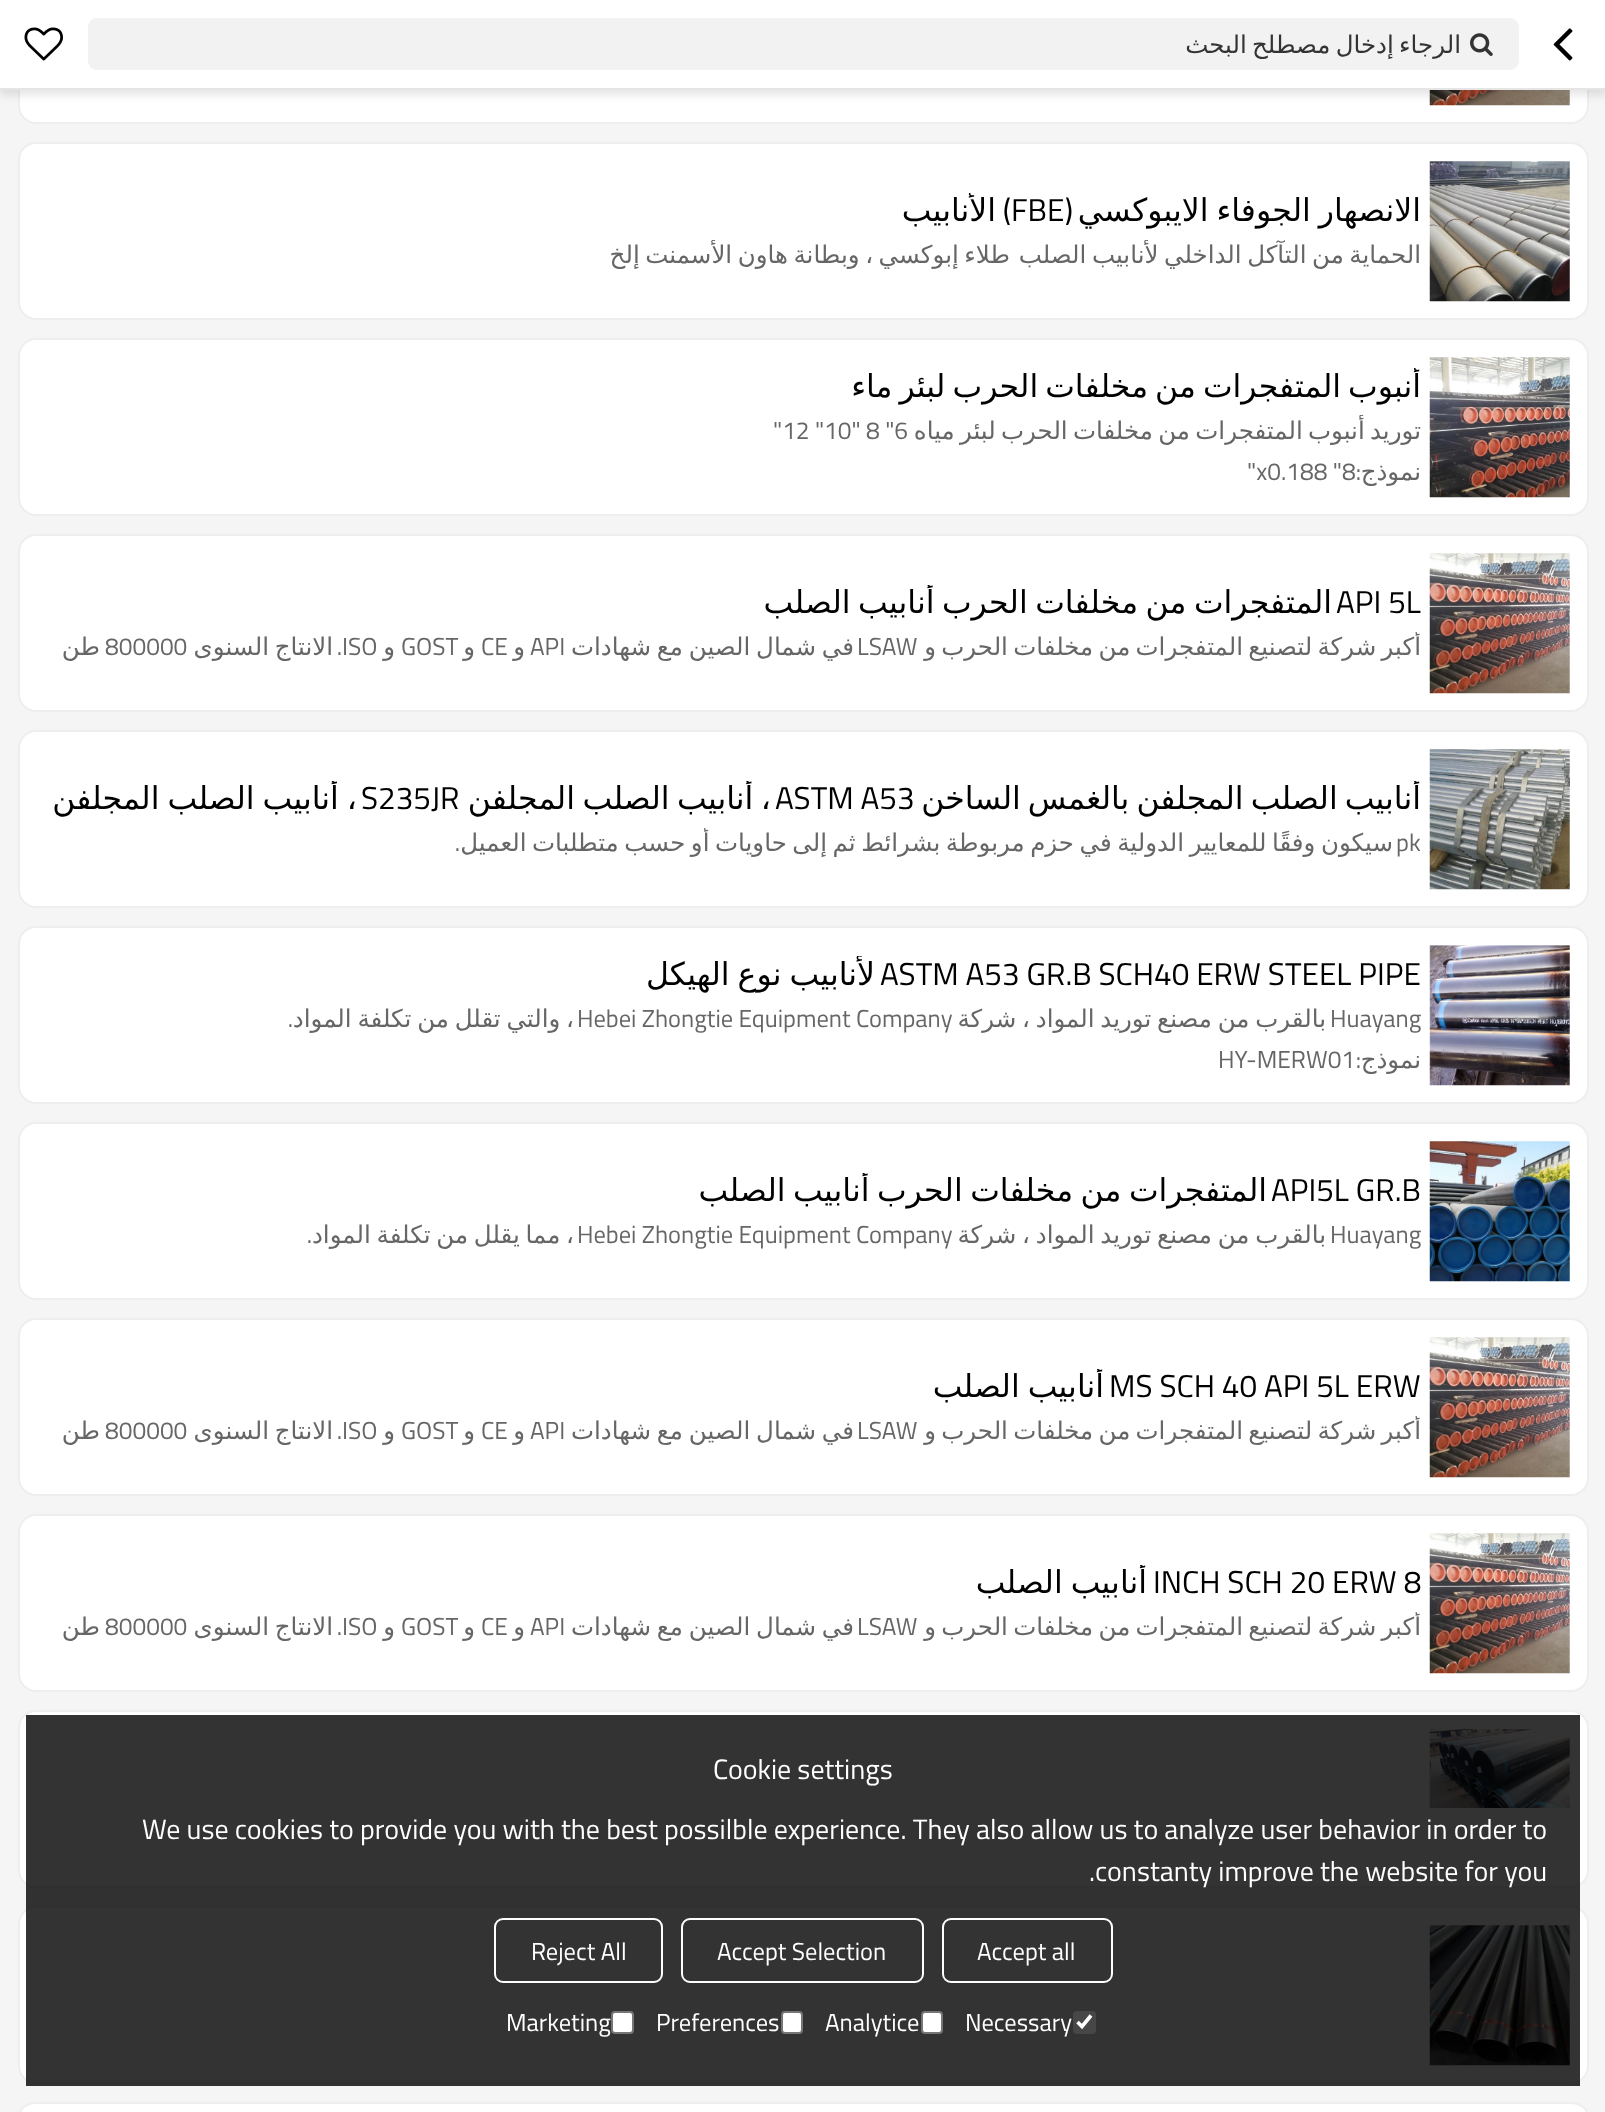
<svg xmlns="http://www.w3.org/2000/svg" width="1605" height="2112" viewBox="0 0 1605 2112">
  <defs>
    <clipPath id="clip1"><rect x="46" y="193" width="1375" height="38"/></clipPath>
    <clipPath id="clip2"><rect x="46" y="240" width="1375" height="31"/></clipPath>
    <clipPath id="clip3"><rect x="46" y="368" width="1375" height="38"/></clipPath>
    <clipPath id="clip4"><rect x="46" y="415" width="1375" height="31"/></clipPath>
    <clipPath id="clip5"><rect x="46" y="585" width="1375" height="38"/></clipPath>
    <clipPath id="clip6"><rect x="46" y="632" width="1375" height="31"/></clipPath>
    <clipPath id="clip7"><rect x="46" y="781" width="1375" height="38"/></clipPath>
    <clipPath id="clip8"><rect x="46" y="828" width="1375" height="31"/></clipPath>
    <clipPath id="clip9"><rect x="46" y="956" width="1375" height="38"/></clipPath>
    <clipPath id="clip10"><rect x="46" y="1173" width="1375" height="38"/></clipPath>
    <clipPath id="clip11"><rect x="46" y="1369" width="1375" height="38"/></clipPath>
    <clipPath id="clip12"><rect x="46" y="1416" width="1375" height="31"/></clipPath>
    <clipPath id="clip13"><rect x="46" y="1565" width="1375" height="38"/></clipPath>
    <clipPath id="clip14"><rect x="46" y="1612" width="1375" height="31"/></clipPath>
  </defs>
  <rect width="100%" height="100%" fill="rgb(245,245,245)"/>
  <rect x="19" y="-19" width="1569" height="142" rx="17" fill="rgb(255,255,255)" stroke="rgb(238,238,238)" stroke-width="2"/>
  <image x="1429" y="90" width="141" height="16" href="pic4.png"/>
  <rect x="0" y="5" width="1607" height="90" fill="rgba(0,0,0,0.1)" filter="blur(4.5px)"/>
  <rect x="0" y="0" width="1605" height="88" fill="rgb(255,255,255)"/>
  <rect x="0" y="88" width="1605" height="2" fill="rgb(229,229,229)"/>
  <image x="1553" y="28" width="20" height="33" href="pic1.png"/>
  <rect x="88" y="18" width="1431" height="52" rx="9" fill="rgb(242,242,242)"/>
  <image x="1470" y="33" width="23" height="23" href="pic2.png"/>
  <text x="1461" y="53" word-spacing="-2.5" font-family="DejaVu Sans" font-size="24.5" direction="rtl" fill="rgb(51,51,51)">الرجاء إدخال مصطلح البحث</text>
  <image x="24" y="27" width="39" height="34" href="pic3.png"/>
  <rect x="19" y="143" width="1569" height="176" rx="17" fill="rgb(255,255,255)" stroke="rgb(238,238,238)" stroke-width="2"/>
  <image x="1429" y="161" width="141" height="141" href="pic5.png"/>
  <g clip-path="url(#clip1)">
    <text x="1421" y="221" word-spacing="-2" font-family="DejaVu Sans" font-size="31.5" direction="rtl" fill="rgb(0,0,0)">الانصهار الجوفاء الايبوكسي</text>
  </g>
  <text x="1073" y="221" font-family="Titillium Web" font-size="31.5" direction="rtl" fill="rgb(0,0,0)">(</text>
  <text x="1011" y="221" font-family="Titillium Web" font-size="31.5" fill="rgb(0,0,0)">FBE</text>
  <text x="1011" y="221" font-family="Titillium Web" font-size="31.5" direction="rtl" fill="rgb(0,0,0)">)</text>
  <g clip-path="url(#clip1)">
    <text x="996" y="221" font-family="DejaVu Sans" font-size="31.5" direction="rtl" fill="rgb(0,0,0)">الأنابيب</text>
  </g>
  <g clip-path="url(#clip2)">
    <g font-family="DejaVu Sans" font-size="24.5" direction="rtl" fill="rgb(102,102,102)">
      <text x="1010" y="263" word-spacing="-2.25">طلاء إبوكسي ، وبطانة هاون الأسمنت إلخ</text>
      <text x="1421" y="263" word-spacing="-2.25">الحماية من التآكل الداخلي لأنابيب الصلب</text>
    </g>
  </g>
  <rect x="19" y="339" width="1569" height="176" rx="17" fill="rgb(255,255,255)" stroke="rgb(238,238,238)" stroke-width="2"/>
  <image x="1429" y="357" width="141" height="141" href="pic6.png"/>
  <g clip-path="url(#clip3)">
    <text x="1421" y="397" word-spacing="-3" font-family="DejaVu Sans" font-size="31.5" direction="rtl" fill="rgb(0,0,0)">أنبوب المتفجرات من مخلفات الحرب لبئر ماء</text>
  </g>
  <g clip-path="url(#clip4)">
    <text x="1421" y="439" word-spacing="-2.5" font-family="DejaVu Sans" font-size="24.5" direction="rtl" fill="rgb(102,102,102)">توريد أنبوب المتفجرات من مخلفات الحرب لبئر مياه</text>
  </g>
  <text x="773" y="439" font-family="Titillium Web" font-size="24.5" fill="rgb(102,102,102)">"12 "10" 8 "6</text>
  <text x="1421" y="480" font-family="DejaVu Sans" font-size="24.5" direction="rtl" fill="rgb(102,102,102)">نموذج</text>
  <text x="1361" y="480" font-family="Titillium Web" font-size="24.5" direction="rtl" fill="rgb(102,102,102)">:</text>
  <text x="1247" y="480" font-family="Titillium Web" font-size="24.5" fill="rgb(102,102,102)">"x0.188 "8</text>
  <rect x="19" y="535" width="1569" height="176" rx="17" fill="rgb(255,255,255)" stroke="rgb(238,238,238)" stroke-width="2"/>
  <image x="1429" y="553" width="141" height="141" href="pic7.png"/>
  <g clip-path="url(#clip5)">
    <text x="1332" y="613" word-spacing="-2.5" font-family="DejaVu Sans" font-size="31.5" direction="rtl" fill="rgb(0,0,0)">المتفجرات من مخلفات الحرب أنابيب الصلب</text>
  </g>
  <text x="1336" y="613" font-family="Titillium Web" font-size="31.5" fill="rgb(0,0,0)">API 5L</text>
  <g clip-path="url(#clip6)">
    <text x="1421" y="655" word-spacing="-2.5" font-family="DejaVu Sans" font-size="24.5" direction="rtl" fill="rgb(102,102,102)">أكبر شركة لتصنيع المتفجرات من مخلفات الحرب و</text>
  </g>
  <text x="854" y="655" word-spacing="-2" font-family="DejaVu Sans" font-size="24.5" direction="rtl" fill="rgb(102,102,102)">في شمال الصين مع شهادات</text>
  <g font-family="Titillium Web" font-size="24.5" fill="rgb(102,102,102)">
    <text x="857" y="655">LSAW</text>
    <text x="530" y="655">API</text>
  </g>
  <text x="525" y="655" font-family="DejaVu Sans" font-size="24.5" direction="rtl" fill="rgb(102,102,102)">و</text>
  <text x="481" y="655" font-family="Titillium Web" font-size="24.5" fill="rgb(102,102,102)">CE</text>
  <text x="475" y="655" font-family="DejaVu Sans" font-size="24.5" direction="rtl" fill="rgb(102,102,102)">و</text>
  <text x="401" y="655" font-family="Titillium Web" font-size="24.5" fill="rgb(102,102,102)">GOST</text>
  <text x="395" y="655" font-family="DejaVu Sans" font-size="24.5" direction="rtl" fill="rgb(102,102,102)">و</text>
  <text x="342" y="655" font-family="Titillium Web" font-size="24.5" fill="rgb(102,102,102)">ISO</text>
  <text x="342" y="655" font-family="Titillium Web" font-size="24.5" direction="rtl" fill="rgb(102,102,102)">.</text>
  <text x="333" y="655" word-spacing="-2" font-family="DejaVu Sans" font-size="24.5" direction="rtl" fill="rgb(102,102,102)">الانتاج السنوى</text>
  <text x="105" y="655" font-family="Titillium Web" font-size="24.5" fill="rgb(102,102,102)">800000</text>
  <text x="100" y="655" font-family="DejaVu Sans" font-size="24.5" direction="rtl" fill="rgb(102,102,102)">طن</text>
  <rect x="19" y="731" width="1569" height="176" rx="17" fill="rgb(255,255,255)" stroke="rgb(238,238,238)" stroke-width="2"/>
  <image x="1429" y="749" width="141" height="141" href="pic8.png"/>
  <g clip-path="url(#clip7)">
    <g font-family="DejaVu Sans" font-size="31.5" direction="rtl" fill="rgb(0,0,0)">
      <text x="1421" y="809" word-spacing="-3">أنابيب الصلب المجلفن بالغمس الساخن</text>
      <text x="771" y="809" word-spacing="-2.5">، أنابيب الصلب المجلفن</text>
    </g>
  </g>
  <g font-family="Titillium Web" font-size="31.5" fill="rgb(0,0,0)">
    <text x="775" y="809">ASTM A53</text>
    <text x="361" y="809">S235JR</text>
  </g>
  <g clip-path="url(#clip7)">
    <text x="357" y="809" word-spacing="-2" font-family="DejaVu Sans" font-size="31.5" direction="rtl" fill="rgb(0,0,0)">، أنابيب الصلب المجلفن</text>
  </g>
  <g clip-path="url(#clip8)">
    <text x="1393" y="851" word-spacing="-2.25" font-family="DejaVu Sans" font-size="24.5" direction="rtl" fill="rgb(102,102,102)">سيكون وفقًا للمعايير الدولية في حزم مربوطة بشرائط ثم إلى حاويات أو حسب متطلبات العميل</text>
  </g>
  <text x="1396" y="851" font-family="Titillium Web" font-size="24.5" fill="rgb(102,102,102)">pk</text>
  <text x="460" y="851" font-family="Titillium Web" font-size="24.5" direction="rtl" fill="rgb(102,102,102)">.</text>
  <rect x="19" y="927" width="1569" height="176" rx="17" fill="rgb(255,255,255)" stroke="rgb(238,238,238)" stroke-width="2"/>
  <image x="1429" y="945" width="141" height="141" href="pic9.png"/>
  <text x="880" y="985" font-family="Titillium Web" font-size="31.5" fill="rgb(0,0,0)">ASTM A53 GR.B SCH40 ERW STEEL PIPE</text>
  <g clip-path="url(#clip9)">
    <text x="875" y="985" word-spacing="-2" font-family="DejaVu Sans" font-size="31.5" direction="rtl" fill="rgb(0,0,0)">لأنابيب نوع الهيكل</text>
  </g>
  <text x="1326" y="1027" word-spacing="-2" font-family="DejaVu Sans" font-size="24.5" direction="rtl" fill="rgb(102,102,102)">بالقرب من مصنع توريد المواد ، شركة</text>
  <text x="1330" y="1027" font-family="Titillium Web" font-size="24.5" fill="rgb(102,102,102)">Huayang</text>
  <text x="574" y="1027" word-spacing="-2" font-family="DejaVu Sans" font-size="24.5" direction="rtl" fill="rgb(102,102,102)">، والتي تقلل من تكلفة المواد</text>
  <text x="577" y="1027" font-family="Titillium Web" font-size="24.5" fill="rgb(102,102,102)">Hebei Zhongtie Equipment Company</text>
  <text x="293" y="1027" font-family="Titillium Web" font-size="24.5" direction="rtl" fill="rgb(102,102,102)">.</text>
  <text x="1421" y="1068" font-family="DejaVu Sans" font-size="24.5" direction="rtl" fill="rgb(102,102,102)">نموذج</text>
  <text x="1361" y="1068" font-family="Titillium Web" font-size="24.5" direction="rtl" fill="rgb(102,102,102)">:</text>
  <text x="1218" y="1068" font-family="Titillium Web" font-size="24.5" fill="rgb(102,102,102)">HY-MERW01</text>
  <rect x="19" y="1123" width="1569" height="176" rx="17" fill="rgb(255,255,255)" stroke="rgb(238,238,238)" stroke-width="2"/>
  <image x="1429" y="1141" width="141" height="141" href="pic10.png"/>
  <g clip-path="url(#clip10)">
    <text x="1267" y="1201" word-spacing="-2.5" font-family="DejaVu Sans" font-size="31.5" direction="rtl" fill="rgb(0,0,0)">المتفجرات من مخلفات الحرب أنابيب الصلب</text>
  </g>
  <text x="1271" y="1201" font-family="Titillium Web" font-size="31.5" fill="rgb(0,0,0)">API5L GR.B</text>
  <text x="1326" y="1243" word-spacing="-2" font-family="DejaVu Sans" font-size="24.5" direction="rtl" fill="rgb(102,102,102)">بالقرب من مصنع توريد المواد ، شركة</text>
  <text x="1330" y="1243" font-family="Titillium Web" font-size="24.5" fill="rgb(102,102,102)">Huayang</text>
  <text x="574" y="1243" word-spacing="-2" font-family="DejaVu Sans" font-size="24.5" direction="rtl" fill="rgb(102,102,102)">، مما يقلل من تكلفة المواد</text>
  <text x="577" y="1243" font-family="Titillium Web" font-size="24.5" fill="rgb(102,102,102)">Hebei Zhongtie Equipment Company</text>
  <text x="312" y="1243" font-family="Titillium Web" font-size="24.5" direction="rtl" fill="rgb(102,102,102)">.</text>
  <rect x="19" y="1319" width="1569" height="176" rx="17" fill="rgb(255,255,255)" stroke="rgb(238,238,238)" stroke-width="2"/>
  <image x="1429" y="1337" width="141" height="141" href="pic7.png"/>
  <text x="1109" y="1397" font-family="Titillium Web" font-size="31.5" fill="rgb(0,0,0)">MS SCH 40 API 5L ERW</text>
  <g clip-path="url(#clip11)">
    <text x="1104" y="1397" word-spacing="-2" font-family="DejaVu Sans" font-size="31.5" direction="rtl" fill="rgb(0,0,0)">أنابيب الصلب</text>
  </g>
  <g clip-path="url(#clip12)">
    <text x="1421" y="1439" word-spacing="-2.5" font-family="DejaVu Sans" font-size="24.5" direction="rtl" fill="rgb(102,102,102)">أكبر شركة لتصنيع المتفجرات من مخلفات الحرب و</text>
  </g>
  <text x="854" y="1439" word-spacing="-2" font-family="DejaVu Sans" font-size="24.5" direction="rtl" fill="rgb(102,102,102)">في شمال الصين مع شهادات</text>
  <g font-family="Titillium Web" font-size="24.5" fill="rgb(102,102,102)">
    <text x="857" y="1439">LSAW</text>
    <text x="530" y="1439">API</text>
  </g>
  <text x="525" y="1439" font-family="DejaVu Sans" font-size="24.5" direction="rtl" fill="rgb(102,102,102)">و</text>
  <text x="481" y="1439" font-family="Titillium Web" font-size="24.5" fill="rgb(102,102,102)">CE</text>
  <text x="475" y="1439" font-family="DejaVu Sans" font-size="24.5" direction="rtl" fill="rgb(102,102,102)">و</text>
  <text x="401" y="1439" font-family="Titillium Web" font-size="24.5" fill="rgb(102,102,102)">GOST</text>
  <text x="395" y="1439" font-family="DejaVu Sans" font-size="24.5" direction="rtl" fill="rgb(102,102,102)">و</text>
  <text x="342" y="1439" font-family="Titillium Web" font-size="24.5" fill="rgb(102,102,102)">ISO</text>
  <text x="342" y="1439" font-family="Titillium Web" font-size="24.5" direction="rtl" fill="rgb(102,102,102)">.</text>
  <text x="333" y="1439" word-spacing="-2" font-family="DejaVu Sans" font-size="24.5" direction="rtl" fill="rgb(102,102,102)">الانتاج السنوى</text>
  <text x="105" y="1439" font-family="Titillium Web" font-size="24.5" fill="rgb(102,102,102)">800000</text>
  <text x="100" y="1439" font-family="DejaVu Sans" font-size="24.5" direction="rtl" fill="rgb(102,102,102)">طن</text>
  <rect x="19" y="1515" width="1569" height="176" rx="17" fill="rgb(255,255,255)" stroke="rgb(238,238,238)" stroke-width="2"/>
  <image x="1429" y="1533" width="141" height="141" href="pic7.png"/>
  <text x="1153" y="1593" font-family="Titillium Web" font-size="31.5" fill="rgb(0,0,0)">INCH SCH 20 ERW 8</text>
  <g clip-path="url(#clip13)">
    <text x="1147" y="1593" word-spacing="-2" font-family="DejaVu Sans" font-size="31.5" direction="rtl" fill="rgb(0,0,0)">أنابيب الصلب</text>
  </g>
  <g clip-path="url(#clip14)">
    <text x="1421" y="1635" word-spacing="-2.5" font-family="DejaVu Sans" font-size="24.5" direction="rtl" fill="rgb(102,102,102)">أكبر شركة لتصنيع المتفجرات من مخلفات الحرب و</text>
  </g>
  <text x="854" y="1635" word-spacing="-2" font-family="DejaVu Sans" font-size="24.5" direction="rtl" fill="rgb(102,102,102)">في شمال الصين مع شهادات</text>
  <g font-family="Titillium Web" font-size="24.5" fill="rgb(102,102,102)">
    <text x="857" y="1635">LSAW</text>
    <text x="530" y="1635">API</text>
  </g>
  <text x="525" y="1635" font-family="DejaVu Sans" font-size="24.5" direction="rtl" fill="rgb(102,102,102)">و</text>
  <text x="481" y="1635" font-family="Titillium Web" font-size="24.5" fill="rgb(102,102,102)">CE</text>
  <text x="475" y="1635" font-family="DejaVu Sans" font-size="24.5" direction="rtl" fill="rgb(102,102,102)">و</text>
  <text x="401" y="1635" font-family="Titillium Web" font-size="24.5" fill="rgb(102,102,102)">GOST</text>
  <text x="395" y="1635" font-family="DejaVu Sans" font-size="24.5" direction="rtl" fill="rgb(102,102,102)">و</text>
  <text x="342" y="1635" font-family="Titillium Web" font-size="24.5" fill="rgb(102,102,102)">ISO</text>
  <text x="342" y="1635" font-family="Titillium Web" font-size="24.5" direction="rtl" fill="rgb(102,102,102)">.</text>
  <text x="333" y="1635" word-spacing="-2" font-family="DejaVu Sans" font-size="24.5" direction="rtl" fill="rgb(102,102,102)">الانتاج السنوى</text>
  <text x="105" y="1635" font-family="Titillium Web" font-size="24.5" fill="rgb(102,102,102)">800000</text>
  <text x="100" y="1635" font-family="DejaVu Sans" font-size="24.5" direction="rtl" fill="rgb(102,102,102)">طن</text>
  <rect x="19" y="1711" width="1569" height="176" rx="17" fill="rgb(255,255,255)" stroke="rgb(238,238,238)" stroke-width="2"/>
  <image x="1429" y="1729" width="141" height="79" href="pic11.png"/>
  <rect x="19" y="1907" width="1569" height="176" rx="17" fill="rgb(255,255,255)" stroke="rgb(238,238,238)" stroke-width="2"/>
  <image x="1429" y="1925" width="141" height="141" href="pic12.png"/>
  <rect x="19" y="2103" width="1569" height="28" rx="17" fill="rgb(255,255,255)" stroke="rgb(238,238,238)" stroke-width="2"/>
  <rect x="26" y="1715" width="1554" height="371" fill="rgba(0,0,0,0.8)"/>
  <g font-family="Titillium Web" font-size="28" fill="rgb(255,255,255)">
    <text x="713" y="1779">Cookie settings</text>
    <text x="142" y="1839">We use cookies to provide you with the best possilble experience. They also allow us to analyze user behavior in order to</text>
    <text x="1089" y="1881">.constanty improve the website for you</text>
  </g>
  <rect x="943" y="1919" width="169" height="63" rx="8" fill="none" stroke="rgb(255,255,255)" stroke-width="2"/>
  <text x="977" y="1960" font-family="Titillium Web" font-size="24.5" fill="rgb(255,255,255)">Accept all</text>
  <rect x="682" y="1919" width="241" height="63" rx="8" fill="none" stroke="rgb(255,255,255)" stroke-width="2"/>
  <text x="717" y="1960" font-family="Titillium Web" font-size="24.5" fill="rgb(255,255,255)">Accept Selection</text>
  <rect x="495" y="1919" width="167" height="63" rx="8" fill="none" stroke="rgb(255,255,255)" stroke-width="2"/>
  <text x="531" y="1960" font-family="Titillium Web" font-size="24.5" fill="rgb(255,255,255)">Reject All</text>
  <rect x="1073" y="2011" width="23" height="23" rx="4" fill="rgba(118,118,118,0.3)"/>
  <path d="M1077.5 2022L1082 2026.5L1091 2015.5" fill="none" stroke="rgb(255,255,255)" stroke-width="3.6"/>
  <text x="965" y="2031" font-family="Titillium Web" font-size="24.5" fill="rgb(255,255,255)">Necessary</text>
  <rect x="922" y="2012" width="20" height="21" rx="3" fill="rgb(255,255,255)" stroke="rgb(118,118,118)" stroke-width="2"/>
  <text x="825" y="2031" font-family="Titillium Web" font-size="24.5" fill="rgb(255,255,255)">Analytice</text>
  <rect x="782" y="2012" width="20" height="21" rx="3" fill="rgb(255,255,255)" stroke="rgb(118,118,118)" stroke-width="2"/>
  <text x="656" y="2031" font-family="Titillium Web" font-size="24.5" fill="rgb(255,255,255)">Preferences</text>
  <rect x="612" y="2012" width="21" height="21" rx="3" fill="rgb(255,255,255)" stroke="rgb(118,118,118)" stroke-width="2"/>
  <text x="506" y="2031" font-family="Titillium Web" font-size="24.5" fill="rgb(255,255,255)">Marketing</text>
</svg>
